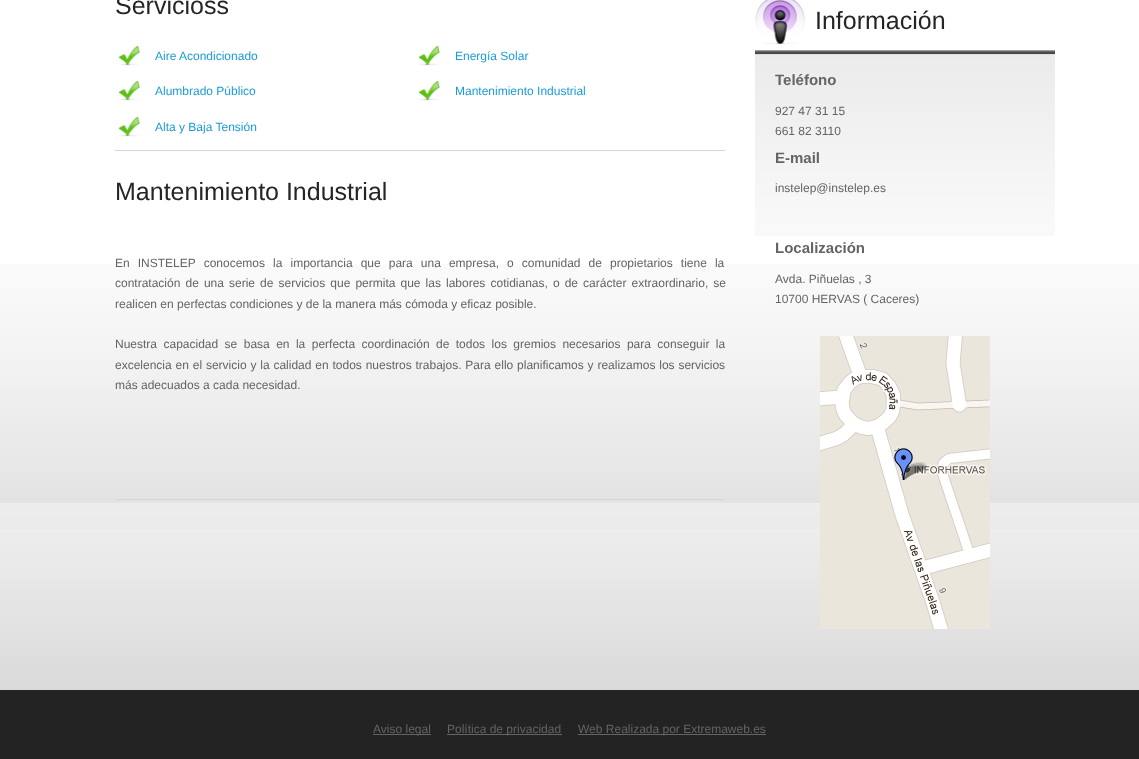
<svg xmlns="http://www.w3.org/2000/svg" width="1139" height="759" viewBox="0 0 1139 759">
  <rect width="100%" height="100%" fill="rgb(255,255,255)"/>
  <image x="0" y="264" width="1139" height="495" href="pic1.png"/>
  <rect x="115" y="150" width="610" height="1" fill="rgb(214,214,214)"/>
  <text x="115" y="14" font-family="Liberation Sans" font-size="25" fill="rgb(37,37,37)">Servicioss</text>
  <image x="118" y="46" width="22" height="20" href="pic2.png"/>
  <text x="155" y="60" font-family="Liberation Sans" font-size="12" fill="rgb(27,156,213)">Aire Acondicionado</text>
  <image x="418" y="46" width="22" height="20" href="pic3.png"/>
  <text x="455" y="60" font-family="Liberation Sans" font-size="12" fill="rgb(27,156,213)">Energía Solar</text>
  <image x="118" y="81" width="22" height="20" href="pic2.png"/>
  <text x="155" y="95" font-family="Liberation Sans" font-size="12" fill="rgb(27,156,213)">Alumbrado Público</text>
  <image x="418" y="81" width="22" height="20" href="pic3.png"/>
  <text x="455" y="95" font-family="Liberation Sans" font-size="12" fill="rgb(27,156,213)">Mantenimiento Industrial</text>
  <image x="118" y="117" width="22" height="20" href="pic2.png"/>
  <text x="155" y="131" font-family="Liberation Sans" font-size="12" fill="rgb(27,156,213)">Alta y Baja Tensión</text>
  <rect x="115" y="499" width="610" height="1" fill="rgb(214,214,214)"/>
  <text x="115" y="200" font-family="Liberation Sans" font-size="25" fill="rgb(37,37,37)">Mantenimiento Industrial</text>
  <g font-family="Liberation Sans" font-size="12" fill="rgb(100,100,100)">
    <text>
      <tspan x="115" y="267" word-spacing="4.75">En INSTELEP conocemos la importancia que para una empresa, o comunidad de propietarios tiene la</tspan>
      <tspan x="115" y="287" word-spacing="1.75">contratación de una serie de servicios que permita que las labores cotidianas, o de carácter extraordinario, se</tspan>
      <tspan x="115" y="308">realicen en perfectas condiciones y de la manera más cómoda y eficaz posible.</tspan>
    </text>
    <text>
      <tspan x="115" y="348" word-spacing="3.1">Nuestra capacidad se basa en la perfecta coordinación de todos los gremios necesarios para conseguir la</tspan>
      <tspan x="115" y="369" word-spacing="0.5">excelencia en el servicio y la calidad en todos nuestros trabajos. Para ello planificamos y realizamos los servicios</tspan>
      <tspan x="115" y="389">más adecuados a cada necesidad.</tspan>
    </text>
  </g>
  <image x="755" y="0" width="50" height="45" href="pic4.png"/>
  <text x="815" y="29" font-family="Liberation Sans" font-size="25" fill="rgb(37,37,37)">Información</text>
  <image x="755" y="50" width="300" height="186" href="pic5.png"/>
  <text x="775" y="85" font-family="Liberation Sans" font-size="15" font-weight="bold" fill="rgb(100,100,100)">Teléfono</text>
  <g font-family="Liberation Sans" font-size="12" fill="rgb(100,100,100)">
    <text>
      <tspan x="775" y="115">927 47 31 15</tspan>
      <tspan x="775" y="135">661 82 3110</tspan>
    </text>
  </g>
  <text x="775" y="163" font-family="Liberation Sans" font-size="15" font-weight="bold" fill="rgb(100,100,100)">E-mail</text>
  <text x="775" y="192" font-family="Liberation Sans" font-size="12" fill="rgb(100,100,100)">instelep@instelep.es</text>
  <text x="775" y="253" font-family="Liberation Sans" font-size="15" font-weight="bold" fill="rgb(100,100,100)">Localización</text>
  <g font-family="Liberation Sans" font-size="12" fill="rgb(100,100,100)">
    <text>
      <tspan x="775" y="283">Avda. Piñuelas , 3</tspan>
      <tspan x="775" y="303">10700 HERVAS ( Caceres)</tspan>
    </text>
  </g>
  <image x="820" y="336" width="170" height="293" href="pic6.png"/>
  <rect x="373" y="734" width="58" height="1" fill="rgb(100,100,100)"/>
  <text x="373" y="733" font-family="Liberation Sans" font-size="12" fill="rgb(100,100,100)">Aviso legal</text>
  <rect x="447" y="734" width="115" height="1" fill="rgb(100,100,100)"/>
  <text x="447" y="733" font-family="Liberation Sans" font-size="12" fill="rgb(100,100,100)">Política de privacidad</text>
  <rect x="578" y="734" width="188" height="1" fill="rgb(100,100,100)"/>
  <text x="578" y="733" font-family="Liberation Sans" font-size="12" fill="rgb(100,100,100)">Web Realizada por Extremaweb.es</text>
</svg>
